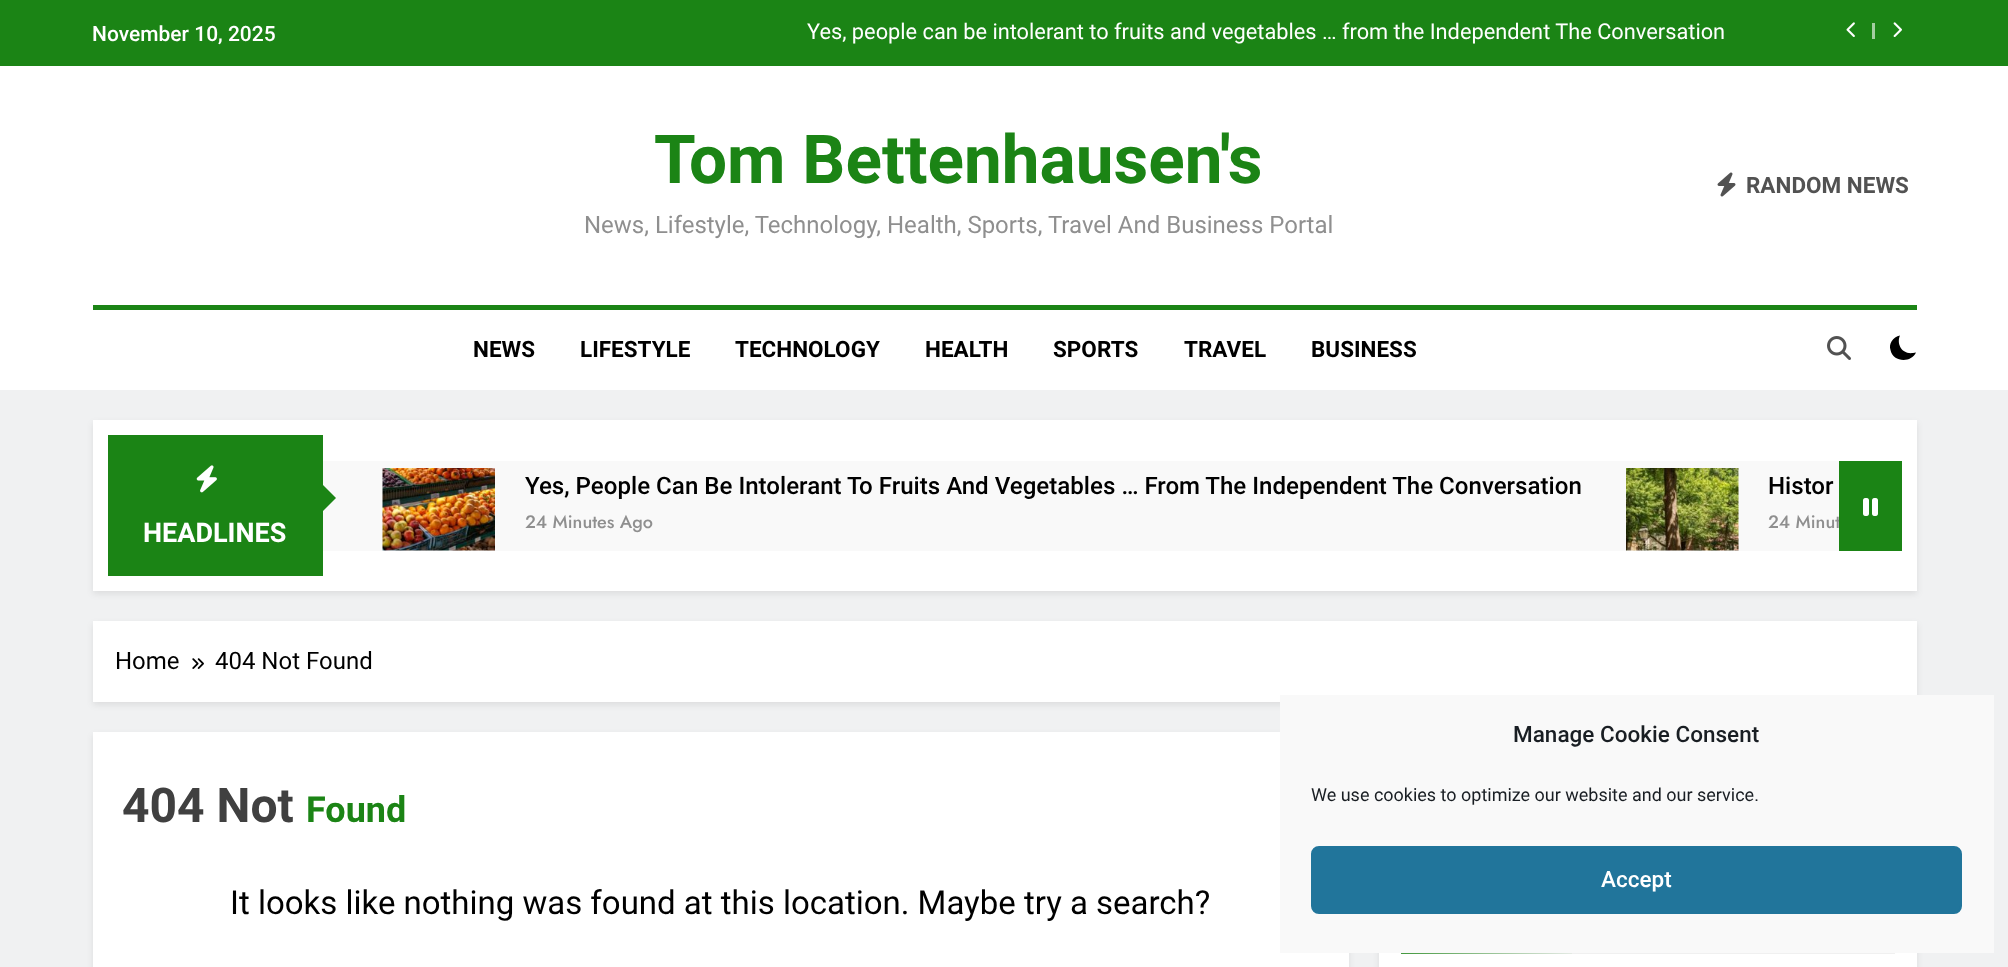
<svg xmlns="http://www.w3.org/2000/svg" width="2008" height="967" viewBox="0 0 2008 967">
  <defs>
    <clipPath id="clip1"><rect x="323" y="461" width="1516" height="90"/></clipPath>
    <linearGradient id="g1" gradientUnits="userSpaceOnUse" x1="1486" y1="945" x2="1487" y2="960"><stop offset="0" stop-color="rgb(27,132,21)"/><stop offset="1" stop-color="rgb(240,240,240)"/></linearGradient>
  </defs>
  <rect width="100%" height="100%" fill="rgb(240,241,242)"/>
  <rect x="0" y="0" width="2008" height="66" fill="rgb(27,132,21)"/>
  <text x="92" y="41" font-family="Roboto" font-size="21" font-weight="500" fill="rgb(255,255,255)">November 10, 2025</text>
  <text x="807" y="39" font-family="Roboto" font-size="21.8" fill="rgb(255,255,255)">Yes, people can be intolerant to fruits and vegetables … from the Independent The Conversation</text>
  <image x="1846" y="22" width="9" height="15" href="pic1.png"/>
  <rect x="1872" y="23" width="3" height="16" fill="rgb(164,206,161)"/>
  <image x="1893" y="22" width="9" height="15" href="pic2.png"/>
  <rect x="0" y="66" width="2008" height="324" fill="rgb(255,255,255)"/>
  <text x="654" y="183" font-family="Roboto" font-size="67.5" font-weight="bold" fill="rgb(27,132,21)">Tom Bettenhausen's</text>
  <text x="584" y="233" font-family="Roboto" font-size="24" fill="rgb(143,143,143)">News, Lifestyle, Technology, Health, Sports, Travel And Business Portal</text>
  <image x="1717" y="172" width="19" height="25" href="pic3.png"/>
  <text x="1746" y="193" font-family="Roboto" font-size="22.5" font-weight="bold" fill="rgb(82,82,82)">RANDOM NEWS</text>
  <rect x="93" y="305" width="1824" height="5" fill="rgb(27,132,21)"/>
  <g font-family="Roboto" font-size="22.5" font-weight="bold" fill="rgb(0,0,0)">
    <text x="473" y="357">NEWS</text>
    <text x="580" y="357">LIFESTYLE</text>
    <text x="735" y="357">TECHNOLOGY</text>
    <text x="925" y="357">HEALTH</text>
    <text x="1053" y="357">SPORTS</text>
    <text x="1184" y="357">TRAVEL</text>
    <text x="1311" y="357">BUSINESS</text>
  </g>
  <image x="1827" y="336" width="24" height="24" href="pic4.png"/>
  <path d="M1916 352.5L1913 353C1901 354.5 1896.5 343 1900 335.5C1896.5 336 1893.5 338.5 1891.5 341.5C1890 344 1889.5 347 1890.5 350C1892.5 362 1911 363.5 1916 352.5Z" fill="rgb(0,0,0)"/>
  <rect x="93" y="423" width="1824" height="171" fill="rgba(0,0,0,0.08)" filter="blur(3px)"/>
  <rect x="93" y="420" width="1824" height="171" fill="rgb(255,255,255)"/>
  <rect x="108" y="435" width="215" height="141" fill="rgb(27,132,21)"/>
  <image x="196" y="465" width="21" height="28" href="pic5.png"/>
  <rect x="323" y="461" width="1516" height="90" fill="rgb(249,249,249)"/>
  <path d="M321 513V483L336 498Z" fill="rgb(27,132,21)"/>
  <text x="143" y="542" font-family="Roboto" font-size="27" font-weight="bold" fill="rgb(255,255,255)">HEADLINES</text>
  <image x="382" y="468" width="113" height="83" href="pic6.png"/>
  <text x="525" y="494" font-family="Roboto" font-size="24.1" font-weight="500" fill="rgb(0,0,0)">Yes, People Can Be Intolerant To Fruits And Vegetables … From The Independent The Conversation</text>
  <text x="525" y="528" font-family="Jost" font-size="18" font-weight="500" fill="rgb(143,143,143)">24 Minutes Ago</text>
  <image x="1626" y="468" width="113" height="83" href="pic7.png"/>
  <text x="1768" y="494" font-family="Roboto" font-size="24.1" font-weight="500" fill="rgb(0,0,0)">Histor</text>
  <g clip-path="url(#clip1)">
    <text x="1768" y="528" font-family="Jost" font-size="18" font-weight="500" fill="rgb(143,143,143)">24 Minut</text>
  </g>
  <rect x="1839" y="461" width="63" height="90" fill="rgb(27,132,21)"/>
  <image x="1863" y="498" width="15" height="18" href="pic8.png"/>
  <rect x="93" y="624" width="1824" height="81" fill="rgba(0,0,0,0.08)" filter="blur(3px)"/>
  <rect x="93" y="621" width="1824" height="81" fill="rgb(255,255,255)"/>
  <text x="115" y="669" font-family="Roboto" font-size="24" fill="rgb(0,0,0)">Home</text>
  <image x="192" y="658" width="12" height="11" href="pic9.png"/>
  <text x="215" y="669" font-family="Roboto" font-size="24" fill="rgb(0,0,0)">404 Not Found</text>
  <rect x="93" y="735" width="1256" height="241" fill="rgba(0,0,0,0.08)" filter="blur(3px)"/>
  <rect x="93" y="732" width="1256" height="235" fill="rgb(255,255,255)"/>
  <text x="122" y="822" font-family="Roboto" font-size="48" font-weight="bold" fill="rgb(64,64,64)">404 Not</text>
  <text x="306" y="822" font-family="Roboto" font-size="36" font-weight="bold" fill="rgb(27,132,21)">Found</text>
  <text x="230" y="914" font-family="Roboto" font-size="33" fill="rgb(0,0,0)">It looks like nothing was found at this location. Maybe try a search?</text>
  <rect x="1379" y="875" width="538" height="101" fill="rgba(0,0,0,0.08)" filter="blur(3px)"/>
  <rect x="1379" y="953" width="538" height="14" fill="rgb(255,255,255)"/>
  <rect x="1572" y="953" width="323" height="1" fill="rgb(240,240,240)"/>
  <rect x="1401" y="953" width="171" height="1" fill="url(#g1)"/>
  <rect x="1280" y="695" width="714" height="258" fill="rgb(249,249,249)"/>
  <text x="1513" y="742" font-family="Roboto" font-size="22.5" font-weight="500" fill="rgb(25,30,35)">Manage Cookie Consent</text>
  <text x="1311" y="801" font-family="Roboto" font-size="18" fill="rgb(25,30,35)">We use cookies to optimize our website and our service.</text>
  <rect x="1312" y="847" width="649" height="66" rx="7" fill="rgb(33,117,155)" stroke="rgb(33,117,155)" stroke-width="2"/>
  <text x="1601" y="887" font-family="Roboto" font-size="22.5" font-weight="500" fill="rgb(255,255,255)">Accept</text>
</svg>
